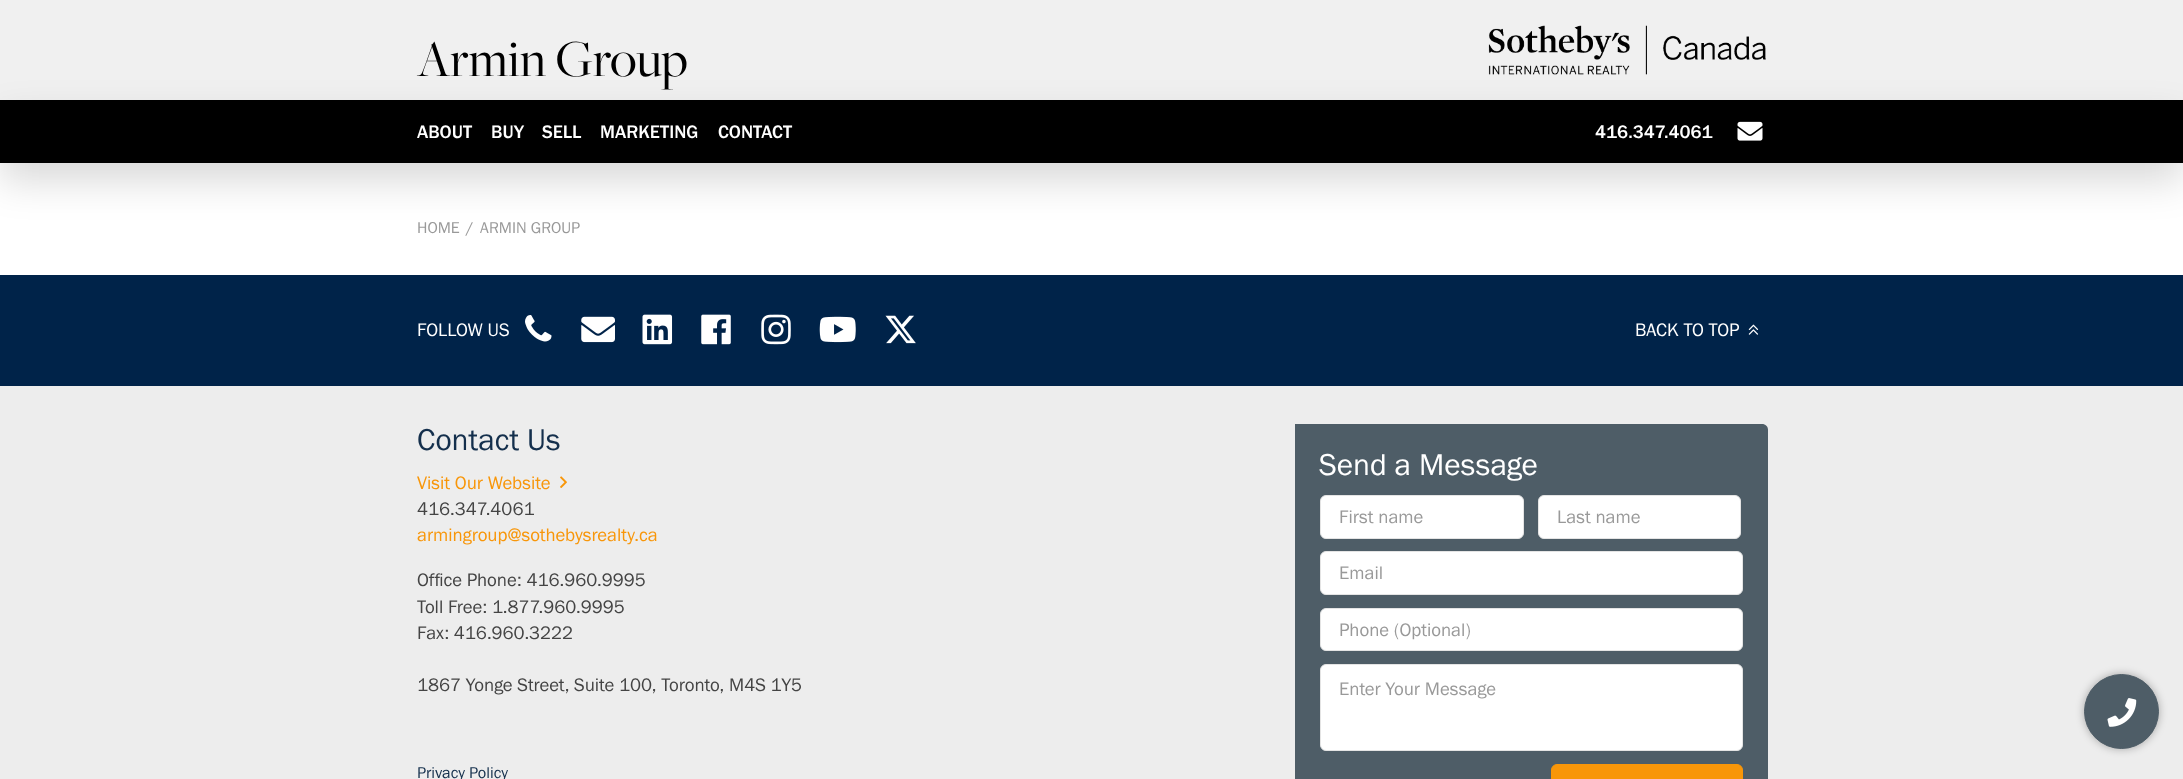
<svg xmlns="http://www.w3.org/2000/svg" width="2183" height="779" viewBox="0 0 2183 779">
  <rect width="100%" height="100%" fill="rgb(255,255,255)"/>
  <rect x="0" y="0" width="2183" height="100" fill="rgb(240,240,240)"/>
  <text x="417" y="76" font-family="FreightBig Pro" font-size="53.75" fill="rgb(0,0,0)">Armin Group</text>
  <image x="1488" y="25" width="278" height="50" href="pic1.png"/>
  <rect x="0" y="119" width="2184" height="62" fill="rgba(0,0,0,0.15)" filter="blur(19px)"/>
  <rect x="0" y="100" width="2183" height="63" fill="rgb(0,0,0)"/>
  <g font-family="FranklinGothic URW" font-size="18.75" font-weight="500" fill="rgb(255,255,255)">
    <text x="417" y="138">ABOUT</text>
    <text x="491" y="138">BUY</text>
    <text x="542" y="138">SELL</text>
    <text x="600" y="138">MARKETING</text>
    <text x="718" y="138">CONTACT</text>
    <text x="1595" y="138">416.347.4061</text>
  </g>
  <image x="1737" y="121" width="26" height="20" href="pic2.png"/>
  <g font-family="FranklinGothic URW" font-size="16.25" fill="rgb(153,153,153)">
    <text x="417" y="233">HOME</text>
    <text x="466" y="233">/</text>
    <text x="480" y="233">ARMIN GROUP</text>
  </g>
  <rect x="0" y="275" width="2183" height="111" fill="rgb(0,35,73)"/>
  <text x="417" y="336" font-family="FranklinGothic URW" font-size="18.75" fill="rgb(255,255,255)">FOLLOW US</text>
  <image x="525" y="315" width="27" height="27" href="pic3.png"/>
  <image x="581" y="316" width="34" height="27" href="pic4.png"/>
  <image x="642" y="314" width="31" height="31" href="pic5.png"/>
  <image x="701" y="314" width="30" height="31" href="pic6.png"/>
  <image x="761" y="314" width="30" height="31" href="pic7.png"/>
  <image x="819" y="316" width="37" height="27" href="pic8.png"/>
  <image x="885" y="315" width="31" height="29" href="pic9.png"/>
  <text x="1635" y="336" font-family="FranklinGothic URW" font-size="18.75" fill="rgb(255,255,255)">BACK TO TOP</text>
  <image x="1748" y="324" width="11" height="11" href="pic10.png"/>
  <rect x="0" y="386" width="2183" height="393" fill="rgb(237,237,237)"/>
  <text x="417" y="450" font-family="FranklinGothic URW" font-size="31.25" fill="rgb(20,47,76)">Contact Us</text>
  <text x="417" y="489" font-family="FranklinGothic URW" font-size="18.75" fill="rgb(248,150,9)">Visit Our Website</text>
  <image x="560" y="476" width="7" height="12" href="pic11.png"/>
  <text x="417" y="515" font-family="FranklinGothic URW" font-size="18.75" fill="rgb(68,68,68)">416.347.4061</text>
  <text x="417" y="541" font-family="FranklinGothic URW" font-size="18.75" fill="rgb(248,150,9)">armingroup@sothebysrealty.ca</text>
  <g font-family="FranklinGothic URW" font-size="18.75" fill="rgb(68,68,68)">
    <text>
      <tspan x="417" y="586">Office Phone: 416.960.9995</tspan>
      <tspan x="417" y="613">Toll Free: 1.877.960.9995</tspan>
      <tspan x="417" y="639">Fax: 416.960.3222</tspan>
    </text>
    <text x="417" y="691">1867 Yonge Street, Suite 100, Toronto, M4S 1Y5</text>
  </g>
  <text x="417" y="778" font-family="FranklinGothic URW" font-size="16.25" fill="rgb(20,47,76)">Privacy Policy</text>
  <path d="M1295 424H1762C1765.5 424 1768 426.5 1768 430V779C1768 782.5 1765.5 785 1762 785H1295Z" fill="rgb(78,93,103)"/>
  <text x="1319" y="475" font-family="FranklinGothic URW" font-size="31.25" fill="rgb(255,255,255)">Send a Message</text>
  <rect x="1320.5" y="495.5" width="203" height="43" rx="5.5" fill="rgb(255,255,255)" stroke="rgb(228,228,228)"/>
  <text x="1339" y="523" font-family="FranklinGothic URW" font-size="18.75" fill="rgb(153,153,153)">First name</text>
  <rect x="1538.5" y="495.5" width="202" height="43" rx="5.5" fill="rgb(255,255,255)" stroke="rgb(228,228,228)"/>
  <text x="1557" y="523" font-family="FranklinGothic URW" font-size="18.75" fill="rgb(153,153,153)">Last name</text>
  <rect x="1320.5" y="551.5" width="422" height="43" rx="5.5" fill="rgb(255,255,255)" stroke="rgb(228,228,228)"/>
  <text x="1339" y="579" font-family="FranklinGothic URW" font-size="18.75" fill="rgb(153,153,153)">Email</text>
  <rect x="1320.5" y="608.5" width="422" height="42" rx="5.5" fill="rgb(255,255,255)" stroke="rgb(228,228,228)"/>
  <text x="1339" y="636" font-family="FranklinGothic URW" font-size="18.75" fill="rgb(153,153,153)">Phone (Optional)</text>
  <rect x="1320.5" y="664.5" width="422" height="86" rx="5.5" fill="rgb(255,255,255)" stroke="rgb(228,228,228)"/>
  <text x="1339" y="695" font-family="FranklinGothic URW" font-size="18.75" fill="rgb(153,153,153)">Enter Your Message</text>
  <rect x="1551.5" y="764.5" width="191" height="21" rx="5.5" fill="rgb(248,150,9)" stroke="rgb(248,150,9)"/>
  <rect x="2084" y="674" width="75" height="75" rx="37.5" fill="rgba(0,0,0,0.3)" filter="blur(4px)"/>
  <circle cx="2121.5" cy="711.5" r="37" fill="rgb(78,93,103)" stroke="rgb(78,93,103)"/>
  <image x="2107" y="698" width="30" height="29" href="pic12.png"/>
</svg>
